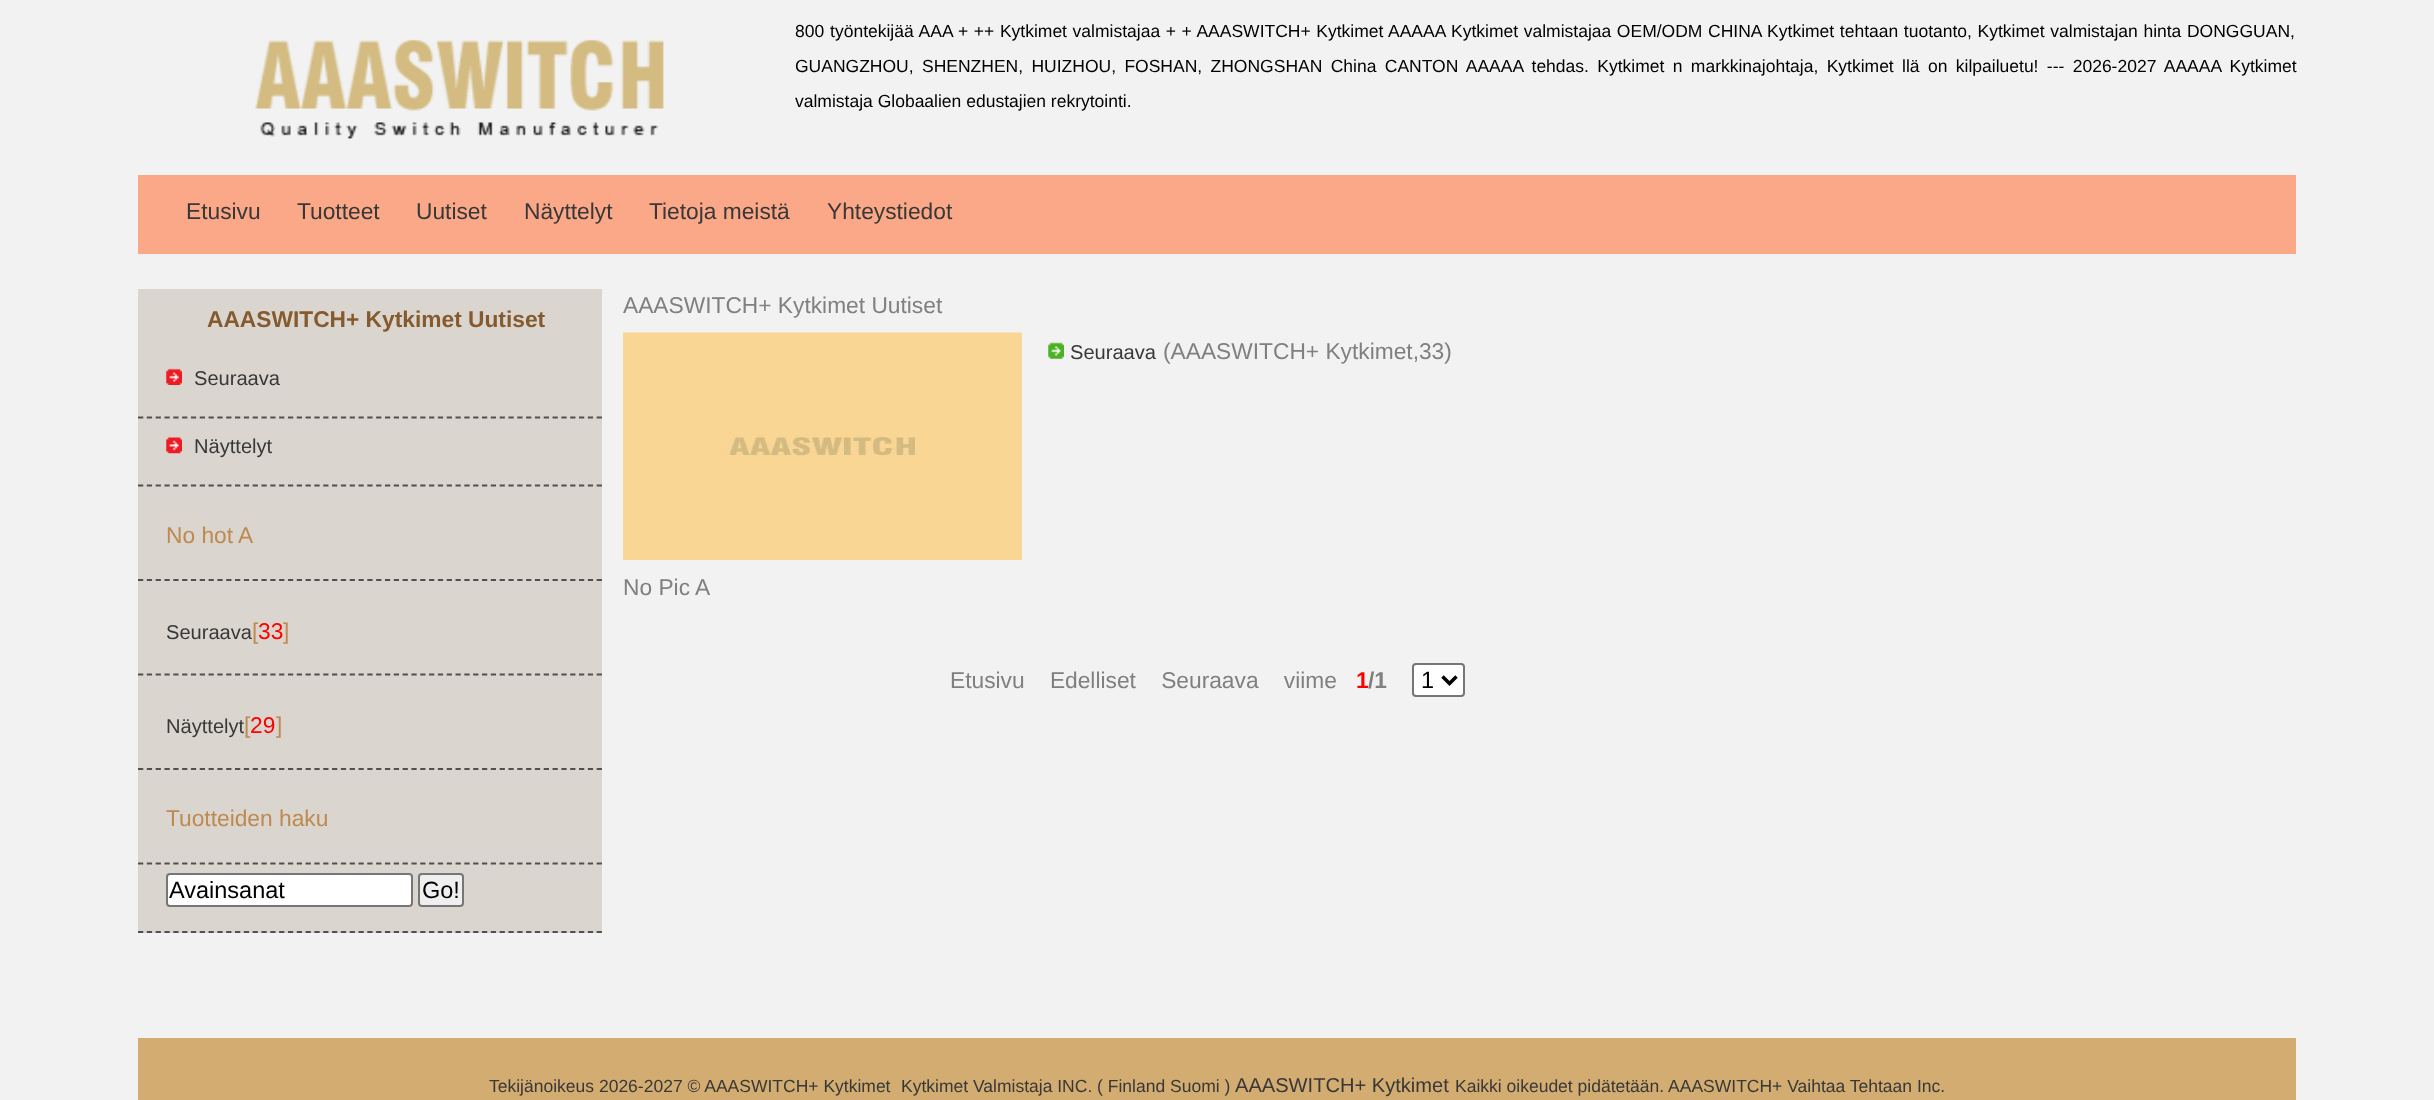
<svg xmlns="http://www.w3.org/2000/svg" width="2434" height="1100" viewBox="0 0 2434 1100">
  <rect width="100%" height="100%" fill="rgb(242,242,242)"/>
  <image x="255" y="39" width="409" height="100" href="pic1.png"/>
  <g font-family="Liberation Sans" font-size="17.5" fill="rgb(0,0,0)">
    <text x="795" y="37" word-spacing="1">800 työntekijää AAA</text>
    <text x="958" y="37" word-spacing="0.75">+ ++ Kytkimet valmistajaa + + AAASWITCH+ Kytkimet</text>
    <text x="1388" y="37" word-spacing="0.75">AAAAA Kytkimet valmistajaa OEM/ODM CHINA Kytkimet tehtaan tuotanto, Kytkimet valmistajan hinta DONGGUAN,</text>
    <text x="795" y="72" word-spacing="3.5">GUANGZHOU, SHENZHEN, HUIZHOU, FOSHAN, ZHONGSHAN China CANTON AAAAA tehdas. Kytkimet n markkinajohtaja, Kytkimet llä on kilpailuetu! --- 2026-2027 AAAAA Kytkimet</text>
    <text x="795" y="107">valmistaja Globaalien edustajien rekrytointi.</text>
  </g>
  <rect x="138" y="175" width="2158" height="79" fill="rgb(251,168,136)"/>
  <g font-family="Liberation Sans" font-size="22.75" fill="rgb(56,56,56)">
    <text x="186" y="219">Etusivu</text>
    <text x="297" y="219">Tuotteet</text>
    <text x="416" y="219">Uutiset</text>
    <text x="524" y="219">Näyttelyt</text>
    <text x="649" y="219">Tietoja meistä</text>
    <text x="827" y="219">Yhteystiedot</text>
  </g>
  <rect x="138" y="289" width="464" height="644" fill="rgb(218,214,207)"/>
  <text x="207" y="327" font-family="Liberation Sans" font-size="22.75" font-weight="bold" fill="rgb(134,90,47)">AAASWITCH+ Kytkimet Uutiset</text>
  <path d="M138 417.5H602" fill="none" stroke="rgb(80,80,80)" stroke-width="1.8" stroke-dasharray="5.25 3.57"/>
  <image x="166" y="368" width="16" height="17" href="pic2.png"/>
  <text x="194" y="385" font-family="Liberation Sans" font-size="20.1" fill="rgb(56,56,56)">Seuraava</text>
  <path d="M138 485.5H602" fill="none" stroke="rgb(80,80,80)" stroke-width="1.8" stroke-dasharray="5.25 3.57"/>
  <image x="166" y="437" width="16" height="17" href="pic3.png"/>
  <text x="194" y="453" font-family="Liberation Sans" font-size="20.1" fill="rgb(56,56,56)">Näyttelyt</text>
  <path d="M138 580H602" fill="none" stroke="rgb(80,80,80)" stroke-width="1.8" stroke-dasharray="5.25 3.57"/>
  <text x="166" y="543" font-family="Liberation Sans" font-size="22.75" fill="rgb(190,138,80)">No hot A</text>
  <path d="M138 674.5H602" fill="none" stroke="rgb(80,80,80)" stroke-width="1.8" stroke-dasharray="5.25 3.57"/>
  <text x="166" y="639" font-family="Liberation Sans" font-size="20.1" fill="rgb(56,56,56)">Seuraava</text>
  <text x="252" y="639" font-family="Liberation Sans" font-size="22.75" fill="rgb(190,138,80)">[</text>
  <text x="258" y="639" font-family="Liberation Sans" font-size="22.75" fill="rgb(255,0,0)">33</text>
  <text x="283" y="639" font-family="Liberation Sans" font-size="22.75" fill="rgb(190,138,80)">]</text>
  <path d="M138 769H602" fill="none" stroke="rgb(80,80,80)" stroke-width="1.8" stroke-dasharray="5.25 3.57"/>
  <text x="166" y="733" font-family="Liberation Sans" font-size="20.1" fill="rgb(56,56,56)">Näyttelyt</text>
  <text x="244" y="733" font-family="Liberation Sans" font-size="22.75" fill="rgb(190,138,80)">[</text>
  <text x="250" y="733" font-family="Liberation Sans" font-size="22.75" fill="rgb(255,0,0)">29</text>
  <text x="276" y="733" font-family="Liberation Sans" font-size="22.75" fill="rgb(190,138,80)">]</text>
  <path d="M138 863.5H602" fill="none" stroke="rgb(80,80,80)" stroke-width="1.8" stroke-dasharray="5.25 3.57"/>
  <text x="166" y="826" font-family="Liberation Sans" font-size="22.75" fill="rgb(190,138,80)">Tuotteiden haku</text>
  <path d="M138 932H602" fill="none" stroke="rgb(80,80,80)" stroke-width="1.8" stroke-dasharray="5.25 3.57"/>
  <rect x="167" y="874" width="245" height="32" rx="3" fill="rgb(255,255,255)" stroke="rgb(118,118,118)" stroke-width="2"/>
  <text x="169" y="898" font-family="Liberation Sans" font-size="23.5" fill="rgb(0,0,0)">Avainsanat</text>
  <rect x="419" y="874" width="44" height="32" rx="3" fill="rgb(239,239,239)" stroke="rgb(118,118,118)" stroke-width="2"/>
  <text x="422" y="898" font-family="Liberation Sans" font-size="23.5" fill="rgb(0,0,0)">Go!</text>
  <text x="623" y="313" font-family="Liberation Sans" font-size="22.75" fill="rgb(128,128,128)">AAASWITCH+ Kytkimet Uutiset</text>
  <image x="1048" y="342" width="16" height="17" href="pic4.png"/>
  <text x="1070" y="359" font-family="Liberation Sans" font-size="20.1" fill="rgb(56,56,56)">Seuraava</text>
  <text x="1163" y="359" font-family="Liberation Sans" font-size="22.75" fill="rgb(128,128,128)">(AAASWITCH+ Kytkimet,33)</text>
  <image x="623" y="332" width="399" height="228" href="pic5.png"/>
  <g font-family="Liberation Sans" font-size="22.75" fill="rgb(128,128,128)">
    <text x="623" y="595">No Pic A</text>
    <text x="950" y="688" xml:space="preserve">Etusivu    Edelliset    Seuraava    viime</text>
  </g>
  <text x="1356" y="688" font-family="Liberation Sans" font-size="22.75" font-weight="bold" fill="rgb(255,0,0)">1</text>
  <text x="1368" y="688" font-family="Liberation Sans" font-size="22.75" font-weight="bold" fill="rgb(128,128,128)">/1</text>
  <rect x="1413" y="664" width="51" height="32" rx="3" fill="rgb(255,255,255)" stroke="rgb(118,118,118)" stroke-width="2"/>
  <path d="M1442.5 676.5L1449.5 683.5L1456.5 676.5" fill="none" stroke="rgb(0,0,0)" stroke-width="3.5"/>
  <text x="1421" y="688" font-family="Liberation Sans" font-size="23.5" fill="rgb(0,0,0)">1</text>
  <rect x="138" y="1038" width="2158" height="62" fill="rgb(211,172,113)"/>
  <g font-family="Liberation Sans" font-size="17.5" fill="rgb(56,56,56)">
    <text x="489" y="1092">Tekijänoikeus 2026-2027 © AAASWITCH+ Kytkimet</text>
    <text x="901" y="1092">Kytkimet Valmistaja INC. ( Finland Suomi )</text>
  </g>
  <text x="1235" y="1092" font-family="Liberation Sans" font-size="20.1" fill="rgb(56,56,56)">AAASWITCH+ Kytkimet</text>
  <text x="1455" y="1092" font-family="Liberation Sans" font-size="17.5" fill="rgb(56,56,56)">Kaikki oikeudet pidätetään. AAASWITCH+ Vaihtaa Tehtaan Inc.</text>
</svg>
